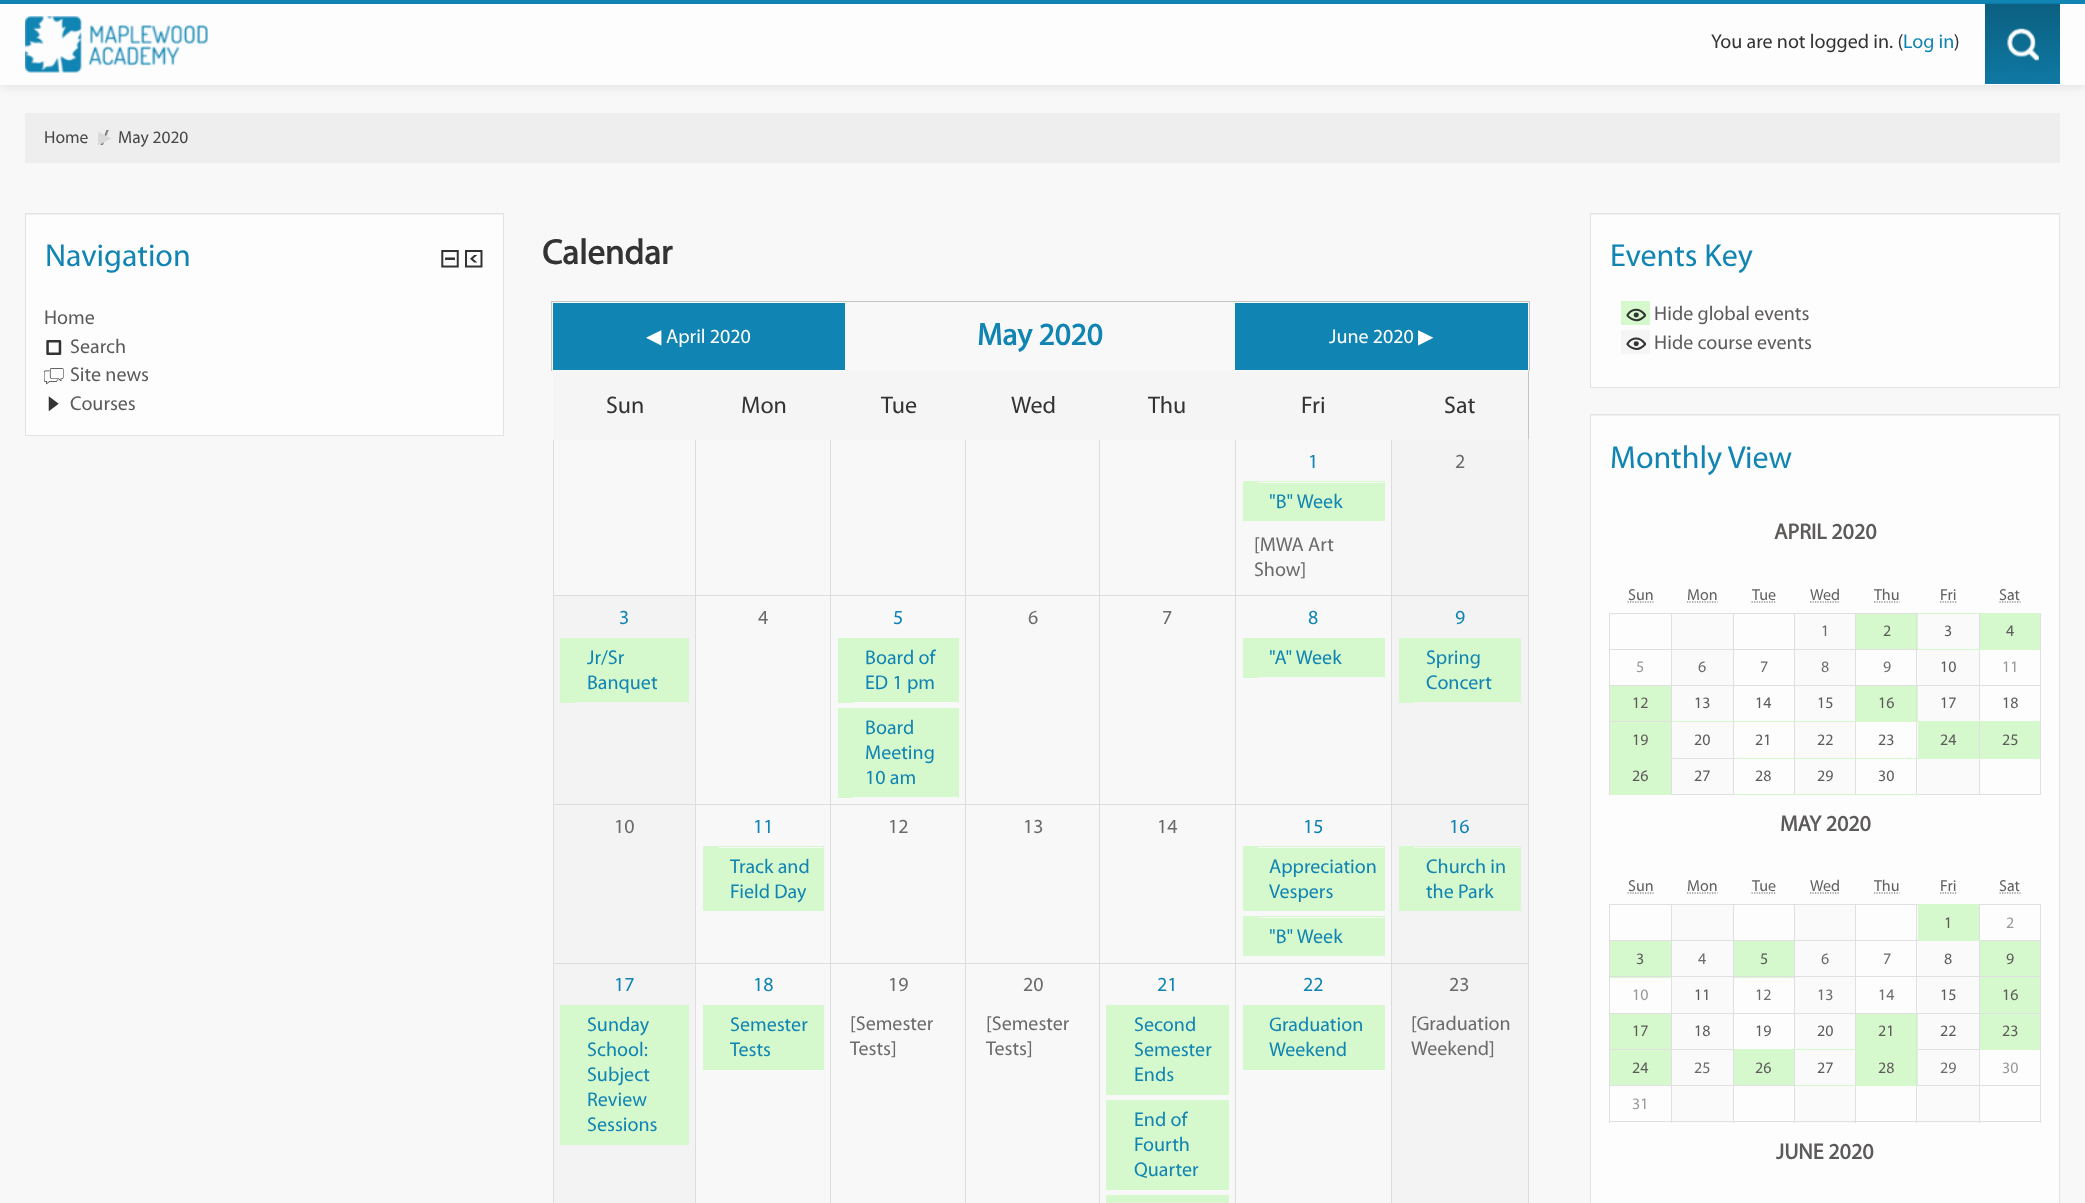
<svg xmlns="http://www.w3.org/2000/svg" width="2085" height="1203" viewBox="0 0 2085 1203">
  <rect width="100%" height="100%" fill="rgb(248,248,248)"/>
  <rect x="0" y="1" width="2085" height="85" fill="rgba(0,0,0,0.1)" filter="blur(6px)"/>
  <rect x="0" y="4" width="2085" height="81" fill="rgb(253,253,253)"/>
  <rect x="0" y="0" width="2085" height="4" fill="rgb(16,132,178)"/>
  <image x="25" y="16" width="183" height="57" href="pic1.png"/>
  <text x="1711" y="48" font-family="Myriad" font-size="20" fill="rgb(51,51,51)">You are not logged in. (</text>
  <text x="1903" y="48" font-family="Myriad" font-size="20" fill="rgb(16,132,178)">Log in</text>
  <text x="1954" y="48" font-family="Myriad" font-size="20" fill="rgb(51,51,51)">)</text>
  <rect x="1985" y="4" width="75" height="80" fill="rgb(16,132,178)"/>
  <image x="1985" y="3" width="75" height="81" href="pic2.png"/>
  <rect x="25" y="113" width="2035" height="50" fill="rgb(238,238,238)"/>
  <text x="44" y="143" font-family="Myriad" font-size="17.5" fill="rgb(72,71,72)">Home</text>
  <image x="100" y="130" width="9" height="15" href="pic3.png"/>
  <text x="98" y="143" font-family="DejaVu Sans" font-size="17.5" fill="rgb(217,217,217)">▶︎</text>
  <text x="118" y="143" font-family="Myriad" font-size="17.5" fill="rgb(72,71,72)">May 2020</text>
  <rect x="26" y="215" width="477" height="220" fill="rgb(253,253,253)"/>
  <rect x="26" y="214" width="477" height="1" fill="rgb(240,240,240)"/>
  <rect x="25.5" y="213.5" width="478" height="222" fill="none" stroke="rgb(227,227,227)"/>
  <text x="45" y="266" font-family="Myriad" font-size="32" fill="rgb(16,132,178)">Navigation</text>
  <image x="441" y="250" width="18" height="18" href="pic4.png"/>
  <image x="465" y="250" width="18" height="18" href="pic5.png"/>
  <text x="44" y="324" font-family="Myriad" font-size="20" fill="rgb(93,90,90)">Home</text>
  <image x="46" y="340" width="16" height="15" href="pic6.png"/>
  <text x="70" y="353" font-family="Myriad" font-size="20" fill="rgb(93,90,90)">Search</text>
  <image x="44" y="368" width="20" height="17" href="pic7.png"/>
  <text x="70" y="381" font-family="Myriad" font-size="20" fill="rgb(93,90,90)">Site news</text>
  <image x="48" y="396" width="11" height="16" href="pic8.png"/>
  <text x="70" y="410" font-family="Myriad" font-size="20" fill="rgb(93,90,90)">Courses</text>
  <text x="542" y="264" font-family="Myriad" font-size="35" font-weight="bold" fill="rgb(51,51,51)">Calendar</text>
  <rect x="551" y="301" width="979" height="1" fill="rgb(196,196,196)"/>
  <rect x="1529" y="301" width="1" height="70" fill="rgb(196,196,196)"/>
  <rect x="551" y="301" width="1" height="70" fill="rgb(196,196,196)"/>
  <rect x="553" y="303" width="292" height="67" fill="rgb(16,132,178)"/>
  <text x="646" y="343" font-family="DejaVu Sans" font-size="20" fill="rgb(255,255,255)">◀︎</text>
  <text x="666" y="343" font-family="Myriad" font-size="20" fill="rgb(255,255,255)">April 2020</text>
  <text x="977" y="345" font-family="Myriad" font-size="31.25" font-weight="bold" fill="rgb(16,132,178)">May 2020</text>
  <rect x="1235" y="303" width="293" height="67" fill="rgb(16,132,178)"/>
  <text x="1329" y="343" font-family="Myriad" font-size="20" fill="rgb(255,255,255)">June 2020</text>
  <text x="1418" y="343" font-family="DejaVu Sans" font-size="20" fill="rgb(255,255,255)">▶︎</text>
  <rect x="1528" y="371" width="1" height="68" fill="rgb(196,196,196)"/>
  <rect x="1391" y="595" width="138" height="1" fill="rgb(221,221,221)"/>
  <rect x="1391" y="804" width="138" height="1" fill="rgb(221,221,221)"/>
  <rect x="1391" y="963" width="138" height="1" fill="rgb(221,221,221)"/>
  <rect x="1391" y="963" width="1" height="240" fill="rgb(221,221,221)"/>
  <rect x="1235" y="963" width="158" height="1" fill="rgb(221,221,221)"/>
  <rect x="1391" y="804" width="1" height="160" fill="rgb(221,221,221)"/>
  <rect x="1235" y="804" width="158" height="1" fill="rgb(221,221,221)"/>
  <rect x="1391" y="595" width="1" height="210" fill="rgb(221,221,221)"/>
  <rect x="1235" y="595" width="158" height="1" fill="rgb(221,221,221)"/>
  <rect x="1235" y="963" width="1" height="240" fill="rgb(221,221,221)"/>
  <rect x="1099" y="963" width="137" height="1" fill="rgb(221,221,221)"/>
  <rect x="1235" y="804" width="1" height="160" fill="rgb(221,221,221)"/>
  <rect x="1099" y="804" width="137" height="1" fill="rgb(221,221,221)"/>
  <rect x="1235" y="595" width="1" height="210" fill="rgb(221,221,221)"/>
  <rect x="1099" y="595" width="137" height="1" fill="rgb(221,221,221)"/>
  <rect x="1099" y="963" width="1" height="240" fill="rgb(221,221,221)"/>
  <rect x="965" y="963" width="135" height="1" fill="rgb(221,221,221)"/>
  <rect x="1099" y="804" width="1" height="160" fill="rgb(221,221,221)"/>
  <rect x="965" y="804" width="135" height="1" fill="rgb(221,221,221)"/>
  <rect x="1099" y="595" width="1" height="210" fill="rgb(221,221,221)"/>
  <rect x="965" y="595" width="135" height="1" fill="rgb(221,221,221)"/>
  <rect x="965" y="963" width="1" height="240" fill="rgb(221,221,221)"/>
  <rect x="830" y="963" width="136" height="1" fill="rgb(221,221,221)"/>
  <rect x="965" y="804" width="1" height="160" fill="rgb(221,221,221)"/>
  <rect x="830" y="804" width="136" height="1" fill="rgb(221,221,221)"/>
  <rect x="965" y="595" width="1" height="210" fill="rgb(221,221,221)"/>
  <rect x="830" y="595" width="136" height="1" fill="rgb(221,221,221)"/>
  <rect x="830" y="963" width="1" height="240" fill="rgb(221,221,221)"/>
  <rect x="695" y="963" width="136" height="1" fill="rgb(221,221,221)"/>
  <rect x="830" y="804" width="1" height="160" fill="rgb(221,221,221)"/>
  <rect x="695" y="804" width="136" height="1" fill="rgb(221,221,221)"/>
  <rect x="830" y="595" width="1" height="210" fill="rgb(221,221,221)"/>
  <rect x="695" y="595" width="136" height="1" fill="rgb(221,221,221)"/>
  <rect x="695" y="963" width="1" height="240" fill="rgb(221,221,221)"/>
  <rect x="553" y="963" width="143" height="1" fill="rgb(221,221,221)"/>
  <rect x="695" y="804" width="1" height="160" fill="rgb(221,221,221)"/>
  <rect x="553" y="804" width="143" height="1" fill="rgb(221,221,221)"/>
  <rect x="695" y="595" width="1" height="210" fill="rgb(221,221,221)"/>
  <rect x="553" y="595" width="143" height="1" fill="rgb(221,221,221)"/>
  <rect x="695" y="439" width="1" height="157" fill="rgb(221,221,221)"/>
  <rect x="830" y="439" width="1" height="157" fill="rgb(221,221,221)"/>
  <rect x="965" y="439" width="1" height="157" fill="rgb(221,221,221)"/>
  <rect x="1099" y="439" width="1" height="157" fill="rgb(221,221,221)"/>
  <rect x="1235" y="439" width="1" height="157" fill="rgb(221,221,221)"/>
  <rect x="1391" y="439" width="1" height="157" fill="rgb(221,221,221)"/>
  <rect x="553" y="963" width="1" height="240" fill="rgb(221,221,221)"/>
  <rect x="553" y="804" width="1" height="160" fill="rgb(221,221,221)"/>
  <rect x="553" y="439" width="1" height="366" fill="rgb(221,221,221)"/>
  <rect x="553" y="371" width="975" height="69" fill="rgb(245,245,245)"/>
  <g font-family="Myriad" font-size="24" fill="rgb(51,51,51)">
    <text x="606" y="413">Sun</text>
    <text x="741" y="413">Mon</text>
    <text x="881" y="413">Tue</text>
    <text x="1011" y="413">Wed</text>
    <text x="1148" y="413">Thu</text>
    <text x="1301" y="413">Fri</text>
    <text x="1444" y="413">Sat</text>
  </g>
  <text x="1308" y="468" font-family="Myriad" font-size="20" fill="rgb(16,132,178)">1</text>
  <rect x="1258" y="483" width="126" height="37" fill="rgb(214,248,205)"/>
  <rect x="1258" y="481" width="127" height="1" fill="rgb(214,248,205)"/>
  <rect x="1384" y="481" width="1" height="40" fill="rgb(214,248,205)"/>
  <rect x="1258" y="520" width="127" height="1" fill="rgb(214,248,205)"/>
  <rect x="1243" y="481" width="15" height="40" fill="rgb(214,248,205)"/>
  <text x="1269" y="508" font-family="Myriad" font-size="20" fill="rgb(16,132,178)">"B" Week</text>
  <g font-family="Myriad" font-size="20" fill="rgb(107,107,107)">
    <text>
      <tspan x="1254" y="551">[MWA Art</tspan>
      <tspan x="1254" y="576">Show]</tspan>
    </text>
  </g>
  <rect x="1392" y="440" width="136" height="155" fill="rgb(243,243,243)"/>
  <text x="1455" y="468" font-family="Myriad" font-size="20" fill="rgb(107,107,107)">2</text>
  <rect x="554" y="596" width="141" height="208" fill="rgb(243,243,243)"/>
  <text x="619" y="624" font-family="Myriad" font-size="20" fill="rgb(16,132,178)">3</text>
  <rect x="575" y="639" width="113" height="62" fill="rgb(214,248,205)"/>
  <rect x="575" y="638" width="114" height="1" fill="rgb(214,248,205)"/>
  <rect x="688" y="638" width="1" height="65" fill="rgb(214,248,205)"/>
  <rect x="575" y="701" width="114" height="1" fill="rgb(214,248,205)"/>
  <rect x="560" y="638" width="15" height="65" fill="rgb(214,248,205)"/>
  <g font-family="Myriad" font-size="20" fill="rgb(16,132,178)">
    <text>
      <tspan x="587" y="664">Jr/Sr</tspan>
      <tspan x="587" y="689">Banquet</tspan>
    </text>
  </g>
  <text x="758" y="624" font-family="Myriad" font-size="20" fill="rgb(107,107,107)">4</text>
  <text x="893" y="624" font-family="Myriad" font-size="20" fill="rgb(16,132,178)">5</text>
  <rect x="853" y="639" width="105" height="62" fill="rgb(214,248,205)"/>
  <rect x="853" y="638" width="106" height="1" fill="rgb(214,248,205)"/>
  <rect x="958" y="638" width="1" height="65" fill="rgb(214,248,205)"/>
  <rect x="853" y="701" width="106" height="1" fill="rgb(214,248,205)"/>
  <rect x="838" y="638" width="15" height="65" fill="rgb(214,248,205)"/>
  <g font-family="Myriad" font-size="20" fill="rgb(16,132,178)">
    <text>
      <tspan x="865" y="664">Board of</tspan>
      <tspan x="865" y="689">ED 1 pm</tspan>
    </text>
  </g>
  <rect x="853" y="709" width="105" height="87" fill="rgb(214,248,205)"/>
  <rect x="853" y="708" width="106" height="1" fill="rgb(214,248,205)"/>
  <rect x="958" y="708" width="1" height="90" fill="rgb(214,248,205)"/>
  <rect x="853" y="796" width="106" height="1" fill="rgb(214,248,205)"/>
  <rect x="838" y="708" width="15" height="90" fill="rgb(214,248,205)"/>
  <g font-family="Myriad" font-size="20" fill="rgb(16,132,178)">
    <text>
      <tspan x="865" y="734">Board</tspan>
      <tspan x="865" y="759">Meeting</tspan>
      <tspan x="865" y="784">10 am</tspan>
    </text>
  </g>
  <g font-family="Myriad" font-size="20" fill="rgb(107,107,107)">
    <text x="1028" y="624">6</text>
    <text x="1162" y="624">7</text>
  </g>
  <text x="1308" y="624" font-family="Myriad" font-size="20" fill="rgb(16,132,178)">8</text>
  <rect x="1258" y="639" width="126" height="37" fill="rgb(214,248,205)"/>
  <rect x="1258" y="638" width="127" height="1" fill="rgb(214,248,205)"/>
  <rect x="1384" y="638" width="1" height="40" fill="rgb(214,248,205)"/>
  <rect x="1258" y="676" width="127" height="1" fill="rgb(214,248,205)"/>
  <rect x="1243" y="638" width="15" height="40" fill="rgb(214,248,205)"/>
  <text x="1269" y="664" font-family="Myriad" font-size="20" fill="rgb(16,132,178)">"A" Week</text>
  <rect x="1392" y="596" width="136" height="208" fill="rgb(243,243,243)"/>
  <rect x="1528" y="963" width="1" height="240" fill="rgb(221,221,221)"/>
  <rect x="1528" y="804" width="1" height="160" fill="rgb(221,221,221)"/>
  <rect x="1528" y="439" width="1" height="366" fill="rgb(221,221,221)"/>
  <text x="1455" y="624" font-family="Myriad" font-size="20" fill="rgb(16,132,178)">9</text>
  <rect x="1414" y="639" width="106" height="62" fill="rgb(214,248,205)"/>
  <rect x="1414" y="638" width="107" height="1" fill="rgb(214,248,205)"/>
  <rect x="1520" y="638" width="1" height="65" fill="rgb(214,248,205)"/>
  <rect x="1414" y="701" width="107" height="1" fill="rgb(214,248,205)"/>
  <rect x="1399" y="638" width="15" height="65" fill="rgb(214,248,205)"/>
  <g font-family="Myriad" font-size="20" fill="rgb(16,132,178)">
    <text>
      <tspan x="1426" y="664">Spring</tspan>
      <tspan x="1426" y="689">Concert</tspan>
    </text>
  </g>
  <rect x="554" y="805" width="141" height="158" fill="rgb(243,243,243)"/>
  <text x="614" y="833" font-family="Myriad" font-size="20" fill="rgb(107,107,107)">10</text>
  <text x="753" y="833" font-family="Myriad" font-size="20" fill="rgb(16,132,178)">11</text>
  <rect x="718" y="848" width="105" height="62" fill="rgb(214,248,205)"/>
  <rect x="718" y="846" width="106" height="1" fill="rgb(214,248,205)"/>
  <rect x="823" y="846" width="1" height="65" fill="rgb(214,248,205)"/>
  <rect x="718" y="910" width="106" height="1" fill="rgb(214,248,205)"/>
  <rect x="703" y="846" width="15" height="65" fill="rgb(214,248,205)"/>
  <g font-family="Myriad" font-size="20" fill="rgb(16,132,178)">
    <text>
      <tspan x="730" y="873">Track and</tspan>
      <tspan x="730" y="898">Field Day</tspan>
    </text>
  </g>
  <g font-family="Myriad" font-size="20" fill="rgb(107,107,107)">
    <text x="888" y="833">12</text>
    <text x="1023" y="833">13</text>
    <text x="1157" y="833">14</text>
  </g>
  <text x="1303" y="833" font-family="Myriad" font-size="20" fill="rgb(16,132,178)">15</text>
  <rect x="1258" y="848" width="126" height="62" fill="rgb(214,248,205)"/>
  <rect x="1258" y="846" width="127" height="1" fill="rgb(214,248,205)"/>
  <rect x="1384" y="846" width="1" height="65" fill="rgb(214,248,205)"/>
  <rect x="1258" y="910" width="127" height="1" fill="rgb(214,248,205)"/>
  <rect x="1243" y="846" width="15" height="65" fill="rgb(214,248,205)"/>
  <g font-family="Myriad" font-size="20" fill="rgb(16,132,178)">
    <text>
      <tspan x="1269" y="873">Appreciation</tspan>
      <tspan x="1269" y="898">Vespers</tspan>
    </text>
  </g>
  <rect x="1258" y="918" width="126" height="37" fill="rgb(214,248,205)"/>
  <rect x="1258" y="916" width="127" height="1" fill="rgb(214,248,205)"/>
  <rect x="1384" y="916" width="1" height="40" fill="rgb(214,248,205)"/>
  <rect x="1258" y="955" width="127" height="1" fill="rgb(214,248,205)"/>
  <rect x="1243" y="916" width="15" height="40" fill="rgb(214,248,205)"/>
  <text x="1269" y="943" font-family="Myriad" font-size="20" fill="rgb(16,132,178)">"B" Week</text>
  <rect x="1392" y="805" width="136" height="158" fill="rgb(243,243,243)"/>
  <text x="1449" y="833" font-family="Myriad" font-size="20" fill="rgb(16,132,178)">16</text>
  <rect x="1414" y="848" width="106" height="62" fill="rgb(214,248,205)"/>
  <rect x="1414" y="846" width="107" height="1" fill="rgb(214,248,205)"/>
  <rect x="1520" y="846" width="1" height="65" fill="rgb(214,248,205)"/>
  <rect x="1414" y="910" width="107" height="1" fill="rgb(214,248,205)"/>
  <rect x="1399" y="846" width="15" height="65" fill="rgb(214,248,205)"/>
  <g font-family="Myriad" font-size="20" fill="rgb(16,132,178)">
    <text>
      <tspan x="1426" y="873">Church in</tspan>
      <tspan x="1426" y="898">the Park</tspan>
    </text>
  </g>
  <rect x="554" y="964" width="141" height="239" fill="rgb(243,243,243)"/>
  <text x="614" y="991" font-family="Myriad" font-size="20" fill="rgb(16,132,178)">17</text>
  <rect x="575" y="1006" width="113" height="138" fill="rgb(214,248,205)"/>
  <rect x="575" y="1005" width="114" height="1" fill="rgb(214,248,205)"/>
  <rect x="688" y="1005" width="1" height="140" fill="rgb(214,248,205)"/>
  <rect x="575" y="1144" width="114" height="1" fill="rgb(214,248,205)"/>
  <rect x="560" y="1005" width="15" height="140" fill="rgb(214,248,205)"/>
  <g font-family="Myriad" font-size="20" fill="rgb(16,132,178)">
    <text>
      <tspan x="587" y="1031">Sunday</tspan>
      <tspan x="587" y="1056">School:</tspan>
      <tspan x="587" y="1081">Subject</tspan>
      <tspan x="587" y="1106">Review</tspan>
      <tspan x="587" y="1131">Sessions</tspan>
    </text>
    <text x="753" y="991">18</text>
  </g>
  <rect x="718" y="1006" width="105" height="63" fill="rgb(214,248,205)"/>
  <rect x="718" y="1005" width="106" height="1" fill="rgb(214,248,205)"/>
  <rect x="823" y="1005" width="1" height="65" fill="rgb(214,248,205)"/>
  <rect x="718" y="1069" width="106" height="1" fill="rgb(214,248,205)"/>
  <rect x="703" y="1005" width="15" height="65" fill="rgb(214,248,205)"/>
  <g font-family="Myriad" font-size="20" fill="rgb(16,132,178)">
    <text>
      <tspan x="730" y="1031">Semester</tspan>
      <tspan x="730" y="1056">Tests</tspan>
    </text>
  </g>
  <g font-family="Myriad" font-size="20" fill="rgb(107,107,107)">
    <text x="888" y="991">19</text>
    <text>
      <tspan x="850" y="1030">[Semester</tspan>
      <tspan x="850" y="1055">Tests]</tspan>
    </text>
    <text x="1023" y="991">20</text>
    <text>
      <tspan x="986" y="1030">[Semester</tspan>
      <tspan x="986" y="1055">Tests]</tspan>
    </text>
  </g>
  <text x="1157" y="991" font-family="Myriad" font-size="20" fill="rgb(16,132,178)">21</text>
  <rect x="1121" y="1006" width="107" height="88" fill="rgb(214,248,205)"/>
  <rect x="1121" y="1005" width="108" height="1" fill="rgb(214,248,205)"/>
  <rect x="1228" y="1005" width="1" height="90" fill="rgb(214,248,205)"/>
  <rect x="1121" y="1094" width="108" height="1" fill="rgb(214,248,205)"/>
  <rect x="1106" y="1005" width="15" height="90" fill="rgb(214,248,205)"/>
  <g font-family="Myriad" font-size="20" fill="rgb(16,132,178)">
    <text>
      <tspan x="1134" y="1031">Second</tspan>
      <tspan x="1134" y="1056">Semester</tspan>
      <tspan x="1134" y="1081">Ends</tspan>
    </text>
  </g>
  <rect x="1121" y="1101" width="107" height="88" fill="rgb(214,248,205)"/>
  <rect x="1121" y="1100" width="108" height="1" fill="rgb(214,248,205)"/>
  <rect x="1228" y="1100" width="1" height="90" fill="rgb(214,248,205)"/>
  <rect x="1121" y="1189" width="108" height="1" fill="rgb(214,248,205)"/>
  <rect x="1106" y="1100" width="15" height="90" fill="rgb(214,248,205)"/>
  <g font-family="Myriad" font-size="20" fill="rgb(16,132,178)">
    <text>
      <tspan x="1134" y="1126">End of</tspan>
      <tspan x="1134" y="1151">Fourth</tspan>
      <tspan x="1134" y="1176">Quarter</tspan>
    </text>
  </g>
  <rect x="1121" y="1196" width="107" height="7" fill="rgb(214,248,205)"/>
  <rect x="1121" y="1195" width="108" height="1" fill="rgb(214,248,205)"/>
  <rect x="1228" y="1195" width="1" height="8" fill="rgb(214,248,205)"/>
  <rect x="1106" y="1195" width="15" height="8" fill="rgb(214,248,205)"/>
  <text x="1303" y="991" font-family="Myriad" font-size="20" fill="rgb(16,132,178)">22</text>
  <rect x="1258" y="1006" width="126" height="63" fill="rgb(214,248,205)"/>
  <rect x="1258" y="1005" width="127" height="1" fill="rgb(214,248,205)"/>
  <rect x="1384" y="1005" width="1" height="65" fill="rgb(214,248,205)"/>
  <rect x="1258" y="1069" width="127" height="1" fill="rgb(214,248,205)"/>
  <rect x="1243" y="1005" width="15" height="65" fill="rgb(214,248,205)"/>
  <g font-family="Myriad" font-size="20" fill="rgb(16,132,178)">
    <text>
      <tspan x="1269" y="1031">Graduation</tspan>
      <tspan x="1269" y="1056">Weekend</tspan>
    </text>
  </g>
  <rect x="1392" y="964" width="136" height="239" fill="rgb(243,243,243)"/>
  <g font-family="Myriad" font-size="20" fill="rgb(107,107,107)">
    <text x="1449" y="991">23</text>
    <text>
      <tspan x="1411" y="1030">[Graduation</tspan>
      <tspan x="1411" y="1055">Weekend]</tspan>
    </text>
  </g>
  <rect x="1591" y="215" width="468" height="172" fill="rgb(253,253,253)"/>
  <rect x="1591" y="214" width="468" height="1" fill="rgb(240,240,240)"/>
  <rect x="1590.5" y="213.5" width="469" height="174" fill="none" stroke="rgb(227,227,227)"/>
  <text x="1610" y="266" font-family="Myriad" font-size="32" fill="rgb(16,132,178)">Events Key</text>
  <rect x="1621" y="301" width="29" height="24" fill="rgb(214,248,205)"/>
  <image x="1626" y="308" width="20" height="14" href="pic9.png"/>
  <text x="1654" y="320" font-family="Myriad" font-size="20" fill="rgb(93,90,90)">Hide global events</text>
  <rect x="1621" y="330" width="29" height="24" fill="rgb(245,245,245)"/>
  <image x="1626" y="337" width="20" height="13" href="pic10.png"/>
  <text x="1654" y="349" font-family="Myriad" font-size="20" fill="rgb(93,90,90)">Hide course events</text>
  <rect x="1591" y="416" width="468" height="787" fill="rgb(253,253,253)"/>
  <rect x="1591" y="415" width="468" height="1" fill="rgb(240,240,240)"/>
  <rect x="1590.5" y="414.5" width="469" height="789" fill="none" stroke="rgb(227,227,227)"/>
  <text x="1610" y="468" font-family="Myriad" font-size="32" fill="rgb(16,132,178)">Monthly View</text>
  <text x="1774" y="539" font-family="Myriad" font-size="22" font-weight="bold" fill="rgb(93,90,90)">APRIL 2020</text>
  <text x="1628" y="600" font-family="Myriad" font-size="16" fill="rgb(97,97,97)">Sun</text>
  <path d="M1627.5 602H1653.5" fill="none" stroke="rgb(97,97,97)" stroke-width="1.2" stroke-dasharray="1.25 1.25"/>
  <text x="1687" y="600" font-family="Myriad" font-size="16" fill="rgb(97,97,97)">Mon</text>
  <path d="M1687 602H1717.5" fill="none" stroke="rgb(97,97,97)" stroke-width="1.2" stroke-dasharray="1.25 1.25"/>
  <text x="1752" y="600" font-family="Myriad" font-size="16" fill="rgb(97,97,97)">Tue</text>
  <path d="M1751.5 602H1775.5" fill="none" stroke="rgb(97,97,97)" stroke-width="1.2" stroke-dasharray="1.25 1.25"/>
  <text x="1810" y="600" font-family="Myriad" font-size="16" fill="rgb(97,97,97)">Wed</text>
  <path d="M1810 602H1840" fill="none" stroke="rgb(97,97,97)" stroke-width="1.2" stroke-dasharray="1.25 1.25"/>
  <text x="1874" y="600" font-family="Myriad" font-size="16" fill="rgb(97,97,97)">Thu</text>
  <path d="M1874 602H1899.5" fill="none" stroke="rgb(97,97,97)" stroke-width="1.2" stroke-dasharray="1.25 1.25"/>
  <text x="1940" y="600" font-family="Myriad" font-size="16" fill="rgb(97,97,97)">Fri</text>
  <path d="M1940 602H1956.5" fill="none" stroke="rgb(97,97,97)" stroke-width="1.2" stroke-dasharray="1.25 1.25"/>
  <text x="1999" y="600" font-family="Myriad" font-size="16" fill="rgb(97,97,97)">Sat</text>
  <path d="M1999.5 602H2020.5" fill="none" stroke="rgb(97,97,97)" stroke-width="1.2" stroke-dasharray="1.25 1.25"/>
  <rect x="1916" y="613" width="64" height="1" fill="rgb(214,248,205)"/>
  <rect x="1856" y="614" width="62" height="35" fill="rgb(214,248,205)"/>
  <rect x="2040" y="613" width="1" height="182" fill="rgb(224,224,224)"/>
  <rect x="1979" y="794" width="62" height="1" fill="rgb(224,224,224)"/>
  <rect x="1979" y="758" width="1" height="37" fill="rgb(224,224,224)"/>
  <rect x="1979" y="758" width="62" height="1" fill="rgb(214,248,205)"/>
  <rect x="1979" y="721" width="1" height="38" fill="rgb(224,224,224)"/>
  <rect x="1979" y="721" width="62" height="1" fill="rgb(214,248,205)"/>
  <rect x="1979" y="685" width="1" height="38" fill="rgb(224,224,224)"/>
  <rect x="1979" y="685" width="62" height="1" fill="rgb(224,224,224)"/>
  <rect x="1979" y="649" width="1" height="37" fill="rgb(224,224,224)"/>
  <rect x="1979" y="649" width="62" height="1" fill="rgb(214,248,205)"/>
  <rect x="1979" y="613" width="1" height="37" fill="rgb(224,224,224)"/>
  <rect x="1856" y="686" width="62" height="35" fill="rgb(214,248,205)"/>
  <rect x="1916" y="794" width="64" height="1" fill="rgb(224,224,224)"/>
  <rect x="1916" y="758" width="1" height="37" fill="rgb(224,224,224)"/>
  <rect x="1916" y="758" width="64" height="1" fill="rgb(214,248,205)"/>
  <rect x="1916" y="721" width="1" height="38" fill="rgb(224,224,224)"/>
  <rect x="1916" y="721" width="64" height="1" fill="rgb(214,248,205)"/>
  <rect x="1916" y="685" width="1" height="38" fill="rgb(224,224,224)"/>
  <rect x="1916" y="685" width="64" height="1" fill="rgb(224,224,224)"/>
  <rect x="1916" y="649" width="1" height="37" fill="rgb(224,224,224)"/>
  <rect x="1916" y="649" width="64" height="1" fill="rgb(214,248,205)"/>
  <rect x="1916" y="613" width="1" height="37" fill="rgb(224,224,224)"/>
  <rect x="1855" y="613" width="63" height="1" fill="rgb(224,224,224)"/>
  <rect x="1855" y="794" width="63" height="1" fill="rgb(214,248,205)"/>
  <rect x="1855" y="758" width="1" height="37" fill="rgb(224,224,224)"/>
  <rect x="1855" y="758" width="63" height="1" fill="rgb(214,248,205)"/>
  <rect x="1855" y="721" width="1" height="38" fill="rgb(224,224,224)"/>
  <rect x="1855" y="721" width="63" height="1" fill="rgb(214,248,205)"/>
  <rect x="1855" y="685" width="1" height="38" fill="rgb(224,224,224)"/>
  <rect x="1855" y="685" width="63" height="1" fill="rgb(224,224,224)"/>
  <rect x="1855" y="649" width="1" height="37" fill="rgb(224,224,224)"/>
  <rect x="1794" y="649" width="62" height="1" fill="rgb(224,224,224)"/>
  <rect x="1855" y="649" width="63" height="1" fill="rgb(224,224,224)"/>
  <rect x="1855" y="613" width="1" height="37" fill="rgb(224,224,224)"/>
  <rect x="1794" y="613" width="62" height="1" fill="rgb(224,224,224)"/>
  <rect x="1794" y="794" width="62" height="1" fill="rgb(214,248,205)"/>
  <rect x="1794" y="758" width="1" height="37" fill="rgb(224,224,224)"/>
  <rect x="1794" y="758" width="62" height="1" fill="rgb(214,248,205)"/>
  <rect x="1794" y="721" width="1" height="38" fill="rgb(224,224,224)"/>
  <rect x="1794" y="721" width="62" height="1" fill="rgb(214,248,205)"/>
  <rect x="1794" y="685" width="1" height="38" fill="rgb(224,224,224)"/>
  <rect x="1794" y="685" width="62" height="1" fill="rgb(224,224,224)"/>
  <rect x="1794" y="649" width="1" height="37" fill="rgb(224,224,224)"/>
  <rect x="1733" y="649" width="62" height="1" fill="rgb(224,224,224)"/>
  <rect x="1794" y="613" width="1" height="37" fill="rgb(224,224,224)"/>
  <rect x="1733" y="613" width="62" height="1" fill="rgb(224,224,224)"/>
  <rect x="1733" y="794" width="62" height="1" fill="rgb(214,248,205)"/>
  <rect x="1733" y="758" width="1" height="37" fill="rgb(224,224,224)"/>
  <rect x="1733" y="758" width="62" height="1" fill="rgb(214,248,205)"/>
  <rect x="1733" y="721" width="1" height="38" fill="rgb(224,224,224)"/>
  <rect x="1733" y="721" width="62" height="1" fill="rgb(214,248,205)"/>
  <rect x="1733" y="685" width="1" height="38" fill="rgb(224,224,224)"/>
  <rect x="1733" y="685" width="62" height="1" fill="rgb(224,224,224)"/>
  <rect x="1733" y="649" width="1" height="37" fill="rgb(224,224,224)"/>
  <rect x="1671" y="649" width="63" height="1" fill="rgb(224,224,224)"/>
  <rect x="1733" y="613" width="1" height="37" fill="rgb(224,224,224)"/>
  <rect x="1671" y="613" width="63" height="1" fill="rgb(224,224,224)"/>
  <rect x="1671" y="794" width="63" height="1" fill="rgb(224,224,224)"/>
  <rect x="1671" y="758" width="1" height="37" fill="rgb(224,224,224)"/>
  <rect x="1671" y="758" width="63" height="1" fill="rgb(224,224,224)"/>
  <rect x="1671" y="721" width="1" height="38" fill="rgb(224,224,224)"/>
  <rect x="1671" y="721" width="63" height="1" fill="rgb(214,248,205)"/>
  <rect x="1671" y="685" width="1" height="38" fill="rgb(224,224,224)"/>
  <rect x="1609" y="685" width="64" height="1" fill="rgb(224,224,224)"/>
  <rect x="1671" y="685" width="63" height="1" fill="rgb(224,224,224)"/>
  <rect x="1671" y="649" width="1" height="37" fill="rgb(224,224,224)"/>
  <rect x="1609" y="649" width="64" height="1" fill="rgb(224,224,224)"/>
  <rect x="1671" y="613" width="1" height="37" fill="rgb(224,224,224)"/>
  <rect x="1609" y="613" width="64" height="1" fill="rgb(224,224,224)"/>
  <rect x="1609" y="794" width="64" height="1" fill="rgb(214,248,205)"/>
  <rect x="1609" y="758" width="1" height="37" fill="rgb(224,224,224)"/>
  <rect x="1609" y="758" width="64" height="1" fill="rgb(214,248,205)"/>
  <rect x="1609" y="721" width="1" height="38" fill="rgb(224,224,224)"/>
  <rect x="1609" y="721" width="64" height="1" fill="rgb(224,224,224)"/>
  <rect x="1609" y="685" width="1" height="38" fill="rgb(224,224,224)"/>
  <rect x="1609" y="649" width="1" height="37" fill="rgb(224,224,224)"/>
  <rect x="1609" y="613" width="1" height="37" fill="rgb(224,224,224)"/>
  <rect x="1672" y="614" width="61" height="35" fill="rgb(250,250,250)"/>
  <rect x="1795" y="614" width="60" height="35" fill="rgb(250,250,250)"/>
  <text x="1821" y="636" font-family="Myriad" font-size="16" fill="rgb(107,107,107)">1</text>
  <text x="1883" y="636" font-family="Myriad" font-size="16" fill="rgb(93,90,90)">2</text>
  <rect x="1918" y="614" width="61" height="35" fill="rgb(250,250,250)"/>
  <text x="1944" y="636" font-family="Myriad" font-size="16" fill="rgb(93,90,90)">3</text>
  <rect x="1980" y="613" width="60" height="36" fill="rgb(214,248,205)"/>
  <text x="2006" y="636" font-family="Myriad" font-size="16" fill="rgb(93,90,90)">4</text>
  <text x="1636" y="672" font-family="Myriad" font-size="16" fill="rgb(153,153,153)">5</text>
  <rect x="1672" y="650" width="61" height="35" fill="rgb(250,250,250)"/>
  <g font-family="Myriad" font-size="16" fill="rgb(107,107,107)">
    <text x="1698" y="672">6</text>
    <text x="1760" y="672">7</text>
  </g>
  <rect x="1795" y="650" width="60" height="35" fill="rgb(250,250,250)"/>
  <g font-family="Myriad" font-size="16" fill="rgb(107,107,107)">
    <text x="1821" y="672">8</text>
    <text x="1883" y="672">9</text>
  </g>
  <rect x="1918" y="650" width="61" height="35" fill="rgb(250,250,250)"/>
  <text x="1940" y="672" font-family="Myriad" font-size="16" fill="rgb(93,90,90)">10</text>
  <text x="2002" y="672" font-family="Myriad" font-size="16" fill="rgb(153,153,153)">11</text>
  <rect x="1610" y="686" width="61" height="35" fill="rgb(214,248,205)"/>
  <text x="1632" y="708" font-family="Myriad" font-size="16" fill="rgb(93,90,90)">12</text>
  <rect x="1672" y="686" width="61" height="35" fill="rgb(250,250,250)"/>
  <g font-family="Myriad" font-size="16" fill="rgb(93,90,90)">
    <text x="1694" y="708">13</text>
    <text x="1755" y="708">14</text>
  </g>
  <rect x="1795" y="686" width="60" height="35" fill="rgb(250,250,250)"/>
  <g font-family="Myriad" font-size="16" fill="rgb(93,90,90)">
    <text x="1817" y="708">15</text>
    <text x="1878" y="708">16</text>
  </g>
  <rect x="1918" y="686" width="61" height="35" fill="rgb(250,250,250)"/>
  <g font-family="Myriad" font-size="16" fill="rgb(93,90,90)">
    <text x="1940" y="708">17</text>
    <text x="2002" y="708">18</text>
  </g>
  <rect x="1610" y="722" width="61" height="36" fill="rgb(214,248,205)"/>
  <text x="1632" y="745" font-family="Myriad" font-size="16" fill="rgb(93,90,90)">19</text>
  <rect x="1672" y="722" width="61" height="36" fill="rgb(250,250,250)"/>
  <g font-family="Myriad" font-size="16" fill="rgb(93,90,90)">
    <text x="1694" y="745">20</text>
    <text x="1755" y="745">21</text>
  </g>
  <rect x="1795" y="722" width="60" height="36" fill="rgb(250,250,250)"/>
  <g font-family="Myriad" font-size="16" fill="rgb(93,90,90)">
    <text x="1817" y="745">22</text>
    <text x="1878" y="745">23</text>
  </g>
  <rect x="1918" y="722" width="61" height="36" fill="rgb(214,248,205)"/>
  <text x="1940" y="745" font-family="Myriad" font-size="16" fill="rgb(93,90,90)">24</text>
  <rect x="1980" y="722" width="60" height="36" fill="rgb(214,248,205)"/>
  <text x="2002" y="745" font-family="Myriad" font-size="16" fill="rgb(93,90,90)">25</text>
  <rect x="1610" y="759" width="61" height="35" fill="rgb(214,248,205)"/>
  <text x="1632" y="781" font-family="Myriad" font-size="16" fill="rgb(93,90,90)">26</text>
  <rect x="1672" y="759" width="61" height="35" fill="rgb(250,250,250)"/>
  <g font-family="Myriad" font-size="16" fill="rgb(93,90,90)">
    <text x="1694" y="781">27</text>
    <text x="1755" y="781">28</text>
  </g>
  <rect x="1795" y="759" width="60" height="35" fill="rgb(250,250,250)"/>
  <g font-family="Myriad" font-size="16" fill="rgb(93,90,90)">
    <text x="1817" y="781">29</text>
    <text x="1878" y="781">30</text>
  </g>
  <rect x="1918" y="759" width="61" height="35" fill="rgb(250,250,250)"/>
  <text x="1780" y="831" font-family="Myriad" font-size="22" font-weight="bold" fill="rgb(93,90,90)">MAY 2020</text>
  <text x="1628" y="891" font-family="Myriad" font-size="16" fill="rgb(97,97,97)">Sun</text>
  <path d="M1627.5 893H1653.5" fill="none" stroke="rgb(97,97,97)" stroke-width="1.2" stroke-dasharray="1.25 1.25"/>
  <text x="1687" y="891" font-family="Myriad" font-size="16" fill="rgb(97,97,97)">Mon</text>
  <path d="M1687 893H1717.5" fill="none" stroke="rgb(97,97,97)" stroke-width="1.2" stroke-dasharray="1.25 1.25"/>
  <text x="1752" y="891" font-family="Myriad" font-size="16" fill="rgb(97,97,97)">Tue</text>
  <path d="M1751.5 893H1775.5" fill="none" stroke="rgb(97,97,97)" stroke-width="1.2" stroke-dasharray="1.25 1.25"/>
  <text x="1810" y="891" font-family="Myriad" font-size="16" fill="rgb(97,97,97)">Wed</text>
  <path d="M1810 893H1840" fill="none" stroke="rgb(97,97,97)" stroke-width="1.2" stroke-dasharray="1.25 1.25"/>
  <text x="1874" y="891" font-family="Myriad" font-size="16" fill="rgb(97,97,97)">Thu</text>
  <path d="M1874 893H1899.5" fill="none" stroke="rgb(97,97,97)" stroke-width="1.2" stroke-dasharray="1.25 1.25"/>
  <text x="1940" y="891" font-family="Myriad" font-size="16" fill="rgb(97,97,97)">Fri</text>
  <path d="M1940 893H1956.5" fill="none" stroke="rgb(97,97,97)" stroke-width="1.2" stroke-dasharray="1.25 1.25"/>
  <text x="1999" y="891" font-family="Myriad" font-size="16" fill="rgb(97,97,97)">Sat</text>
  <path d="M1999.5 893H2020.5" fill="none" stroke="rgb(97,97,97)" stroke-width="1.2" stroke-dasharray="1.25 1.25"/>
  <rect x="1979" y="904" width="62" height="1" fill="rgb(224,224,224)"/>
  <rect x="1916" y="904" width="64" height="1" fill="rgb(214,248,205)"/>
  <rect x="1979" y="940" width="62" height="1" fill="rgb(224,224,224)"/>
  <rect x="1918" y="941" width="61" height="72" fill="rgb(250,250,250)"/>
  <rect x="1980" y="941" width="60" height="72" fill="rgb(214,248,205)"/>
  <rect x="1979" y="976" width="62" height="1" fill="rgb(224,224,224)"/>
  <rect x="1979" y="1085" width="62" height="1" fill="rgb(224,224,224)"/>
  <rect x="2040" y="1013" width="1" height="110" fill="rgb(224,224,224)"/>
  <rect x="2040" y="976" width="1" height="38" fill="rgb(224,224,224)"/>
  <rect x="1979" y="1121" width="62" height="1" fill="rgb(224,224,224)"/>
  <rect x="1979" y="1085" width="1" height="38" fill="rgb(224,224,224)"/>
  <rect x="1916" y="1085" width="64" height="1" fill="rgb(224,224,224)"/>
  <rect x="1979" y="1049" width="1" height="37" fill="rgb(224,224,224)"/>
  <rect x="1979" y="1049" width="62" height="1" fill="rgb(214,248,205)"/>
  <rect x="1979" y="1013" width="1" height="37" fill="rgb(224,224,224)"/>
  <rect x="1979" y="1013" width="62" height="1" fill="rgb(224,224,224)"/>
  <rect x="1979" y="976" width="1" height="38" fill="rgb(224,224,224)"/>
  <rect x="1916" y="976" width="64" height="1" fill="rgb(224,224,224)"/>
  <rect x="1979" y="940" width="1" height="38" fill="rgb(224,224,224)"/>
  <rect x="1979" y="904" width="1" height="37" fill="rgb(224,224,224)"/>
  <rect x="1856" y="1014" width="62" height="35" fill="rgb(214,248,205)"/>
  <rect x="1856" y="1050" width="62" height="35" fill="rgb(214,248,205)"/>
  <rect x="1918" y="1086" width="61" height="37" fill="rgb(250,250,250)"/>
  <rect x="1916" y="1121" width="64" height="1" fill="rgb(224,224,224)"/>
  <rect x="1916" y="1049" width="1" height="74" fill="rgb(224,224,224)"/>
  <rect x="1916" y="1049" width="64" height="1" fill="rgb(224,224,224)"/>
  <rect x="1916" y="1013" width="1" height="37" fill="rgb(224,224,224)"/>
  <rect x="1916" y="1013" width="64" height="1" fill="rgb(224,224,224)"/>
  <rect x="1916" y="976" width="1" height="38" fill="rgb(224,224,224)"/>
  <rect x="1855" y="976" width="63" height="1" fill="rgb(224,224,224)"/>
  <rect x="1916" y="940" width="1" height="38" fill="rgb(224,224,224)"/>
  <rect x="1916" y="940" width="64" height="1" fill="rgb(214,248,205)"/>
  <rect x="1916" y="904" width="1" height="37" fill="rgb(224,224,224)"/>
  <rect x="1855" y="904" width="63" height="1" fill="rgb(224,224,224)"/>
  <rect x="1795" y="941" width="60" height="72" fill="rgb(250,250,250)"/>
  <rect x="1855" y="1121" width="63" height="1" fill="rgb(224,224,224)"/>
  <rect x="1855" y="1085" width="1" height="38" fill="rgb(224,224,224)"/>
  <rect x="1855" y="1085" width="63" height="1" fill="rgb(214,248,205)"/>
  <rect x="1855" y="1049" width="1" height="37" fill="rgb(224,224,224)"/>
  <rect x="1855" y="1049" width="63" height="1" fill="rgb(214,248,205)"/>
  <rect x="1855" y="1013" width="1" height="37" fill="rgb(224,224,224)"/>
  <rect x="1855" y="1013" width="63" height="1" fill="rgb(224,224,224)"/>
  <rect x="1855" y="976" width="1" height="38" fill="rgb(224,224,224)"/>
  <rect x="1794" y="976" width="62" height="1" fill="rgb(224,224,224)"/>
  <rect x="1855" y="940" width="1" height="38" fill="rgb(224,224,224)"/>
  <rect x="1794" y="940" width="62" height="1" fill="rgb(224,224,224)"/>
  <rect x="1855" y="940" width="63" height="1" fill="rgb(224,224,224)"/>
  <rect x="1855" y="904" width="1" height="37" fill="rgb(224,224,224)"/>
  <rect x="1794" y="904" width="62" height="1" fill="rgb(224,224,224)"/>
  <rect x="1734" y="941" width="60" height="37" fill="rgb(214,248,205)"/>
  <rect x="1795" y="1086" width="60" height="37" fill="rgb(250,250,250)"/>
  <rect x="1794" y="1121" width="62" height="1" fill="rgb(224,224,224)"/>
  <rect x="1794" y="1085" width="1" height="38" fill="rgb(224,224,224)"/>
  <rect x="1733" y="1085" width="62" height="1" fill="rgb(224,224,224)"/>
  <rect x="1794" y="1085" width="62" height="1" fill="rgb(214,248,205)"/>
  <rect x="1794" y="1049" width="1" height="37" fill="rgb(224,224,224)"/>
  <rect x="1794" y="1049" width="62" height="1" fill="rgb(214,248,205)"/>
  <rect x="1794" y="1013" width="1" height="37" fill="rgb(224,224,224)"/>
  <rect x="1794" y="1013" width="62" height="1" fill="rgb(224,224,224)"/>
  <rect x="1794" y="976" width="1" height="38" fill="rgb(224,224,224)"/>
  <rect x="1733" y="976" width="62" height="1" fill="rgb(224,224,224)"/>
  <rect x="1794" y="940" width="1" height="38" fill="rgb(224,224,224)"/>
  <rect x="1733" y="940" width="62" height="1" fill="rgb(224,224,224)"/>
  <rect x="1794" y="904" width="1" height="37" fill="rgb(224,224,224)"/>
  <rect x="1733" y="904" width="62" height="1" fill="rgb(224,224,224)"/>
  <rect x="1672" y="941" width="61" height="72" fill="rgb(250,250,250)"/>
  <rect x="1733" y="1121" width="62" height="1" fill="rgb(224,224,224)"/>
  <rect x="1733" y="1085" width="1" height="38" fill="rgb(224,224,224)"/>
  <rect x="1671" y="1085" width="63" height="1" fill="rgb(224,224,224)"/>
  <rect x="1733" y="1049" width="1" height="37" fill="rgb(224,224,224)"/>
  <rect x="1671" y="1049" width="63" height="1" fill="rgb(224,224,224)"/>
  <rect x="1733" y="1049" width="62" height="1" fill="rgb(214,248,205)"/>
  <rect x="1733" y="1013" width="1" height="37" fill="rgb(224,224,224)"/>
  <rect x="1671" y="1013" width="63" height="1" fill="rgb(224,224,224)"/>
  <rect x="1733" y="1013" width="62" height="1" fill="rgb(224,224,224)"/>
  <rect x="1733" y="976" width="1" height="38" fill="rgb(224,224,224)"/>
  <rect x="1671" y="976" width="63" height="1" fill="rgb(224,224,224)"/>
  <rect x="1733" y="940" width="1" height="38" fill="rgb(224,224,224)"/>
  <rect x="1671" y="940" width="63" height="1" fill="rgb(224,224,224)"/>
  <rect x="1733" y="904" width="1" height="37" fill="rgb(224,224,224)"/>
  <rect x="1671" y="904" width="63" height="1" fill="rgb(224,224,224)"/>
  <rect x="1610" y="941" width="61" height="37" fill="rgb(214,248,205)"/>
  <rect x="1672" y="1086" width="61" height="37" fill="rgb(250,250,250)"/>
  <rect x="1671" y="1121" width="63" height="1" fill="rgb(224,224,224)"/>
  <rect x="1671" y="1085" width="1" height="38" fill="rgb(224,224,224)"/>
  <rect x="1609" y="1085" width="64" height="1" fill="rgb(224,224,224)"/>
  <rect x="1671" y="1049" width="1" height="37" fill="rgb(224,224,224)"/>
  <rect x="1609" y="1049" width="64" height="1" fill="rgb(224,224,224)"/>
  <rect x="1671" y="1013" width="1" height="37" fill="rgb(224,224,224)"/>
  <rect x="1609" y="1013" width="64" height="1" fill="rgb(224,224,224)"/>
  <rect x="1671" y="976" width="1" height="38" fill="rgb(224,224,224)"/>
  <rect x="1609" y="976" width="64" height="1" fill="rgb(224,224,224)"/>
  <rect x="1671" y="940" width="1" height="38" fill="rgb(224,224,224)"/>
  <rect x="1609" y="940" width="64" height="1" fill="rgb(224,224,224)"/>
  <rect x="1671" y="904" width="1" height="37" fill="rgb(224,224,224)"/>
  <rect x="1609" y="904" width="64" height="1" fill="rgb(224,224,224)"/>
  <rect x="1609" y="1121" width="64" height="1" fill="rgb(224,224,224)"/>
  <rect x="1609" y="1085" width="1" height="38" fill="rgb(224,224,224)"/>
  <rect x="1609" y="1049" width="1" height="37" fill="rgb(224,224,224)"/>
  <rect x="1609" y="1013" width="1" height="37" fill="rgb(224,224,224)"/>
  <rect x="1609" y="976" width="1" height="38" fill="rgb(224,224,224)"/>
  <rect x="1609" y="940" width="1" height="38" fill="rgb(224,224,224)"/>
  <rect x="1609" y="904" width="1" height="37" fill="rgb(224,224,224)"/>
  <rect x="1672" y="905" width="61" height="35" fill="rgb(250,250,250)"/>
  <rect x="1795" y="905" width="60" height="35" fill="rgb(250,250,250)"/>
  <rect x="1918" y="905" width="61" height="35" fill="rgb(214,248,205)"/>
  <text x="1944" y="928" font-family="Myriad" font-size="16" fill="rgb(93,90,90)">1</text>
  <rect x="2040" y="940" width="1" height="38" fill="rgb(224,224,224)"/>
  <rect x="2040" y="904" width="1" height="37" fill="rgb(224,224,224)"/>
  <text x="2006" y="928" font-family="Myriad" font-size="16" fill="rgb(153,153,153)">2</text>
  <text x="1636" y="964" font-family="Myriad" font-size="16" fill="rgb(93,90,90)">3</text>
  <text x="1698" y="964" font-family="Myriad" font-size="16" fill="rgb(107,107,107)">4</text>
  <text x="1760" y="964" font-family="Myriad" font-size="16" fill="rgb(93,90,90)">5</text>
  <g font-family="Myriad" font-size="16" fill="rgb(107,107,107)">
    <text x="1821" y="964">6</text>
    <text x="1883" y="964">7</text>
  </g>
  <g font-family="Myriad" font-size="16" fill="rgb(93,90,90)">
    <text x="1944" y="964">8</text>
    <text x="2006" y="964">9</text>
  </g>
  <text x="1632" y="1000" font-family="Myriad" font-size="16" fill="rgb(153,153,153)">10</text>
  <text x="1694" y="1000" font-family="Myriad" font-size="16" fill="rgb(93,90,90)">11</text>
  <g font-family="Myriad" font-size="16" fill="rgb(107,107,107)">
    <text x="1755" y="1000">12</text>
    <text x="1817" y="1000">13</text>
    <text x="1878" y="1000">14</text>
  </g>
  <g font-family="Myriad" font-size="16" fill="rgb(93,90,90)">
    <text x="1940" y="1000">15</text>
    <text x="2002" y="1000">16</text>
  </g>
  <rect x="1610" y="1014" width="61" height="35" fill="rgb(214,248,205)"/>
  <text x="1632" y="1036" font-family="Myriad" font-size="16" fill="rgb(93,90,90)">17</text>
  <rect x="1672" y="1014" width="61" height="35" fill="rgb(250,250,250)"/>
  <g font-family="Myriad" font-size="16" fill="rgb(93,90,90)">
    <text x="1694" y="1036">18</text>
    <text x="1755" y="1036">19</text>
  </g>
  <rect x="1795" y="1014" width="60" height="35" fill="rgb(250,250,250)"/>
  <g font-family="Myriad" font-size="16" fill="rgb(93,90,90)">
    <text x="1817" y="1036">20</text>
    <text x="1878" y="1036">21</text>
  </g>
  <rect x="1918" y="1014" width="61" height="35" fill="rgb(250,250,250)"/>
  <text x="1940" y="1036" font-family="Myriad" font-size="16" fill="rgb(93,90,90)">22</text>
  <rect x="1980" y="1014" width="60" height="35" fill="rgb(214,248,205)"/>
  <text x="2002" y="1036" font-family="Myriad" font-size="16" fill="rgb(93,90,90)">23</text>
  <rect x="1610" y="1050" width="61" height="35" fill="rgb(214,248,205)"/>
  <text x="1632" y="1073" font-family="Myriad" font-size="16" fill="rgb(93,90,90)">24</text>
  <rect x="1672" y="1050" width="61" height="35" fill="rgb(250,250,250)"/>
  <text x="1694" y="1073" font-family="Myriad" font-size="16" fill="rgb(107,107,107)">25</text>
  <rect x="1734" y="1050" width="60" height="35" fill="rgb(214,248,205)"/>
  <text x="1755" y="1073" font-family="Myriad" font-size="16" fill="rgb(93,90,90)">26</text>
  <rect x="1795" y="1050" width="60" height="35" fill="rgb(250,250,250)"/>
  <g font-family="Myriad" font-size="16" fill="rgb(93,90,90)">
    <text x="1817" y="1073">27</text>
    <text x="1878" y="1073">28</text>
  </g>
  <rect x="1918" y="1050" width="61" height="35" fill="rgb(250,250,250)"/>
  <text x="1940" y="1073" font-family="Myriad" font-size="16" fill="rgb(107,107,107)">29</text>
  <g font-family="Myriad" font-size="16" fill="rgb(153,153,153)">
    <text x="2002" y="1073">30</text>
    <text x="1632" y="1109">31</text>
  </g>
  <text x="1776" y="1159" font-family="Myriad" font-size="22" font-weight="bold" fill="rgb(93,90,90)">JUNE 2020</text>
</svg>
